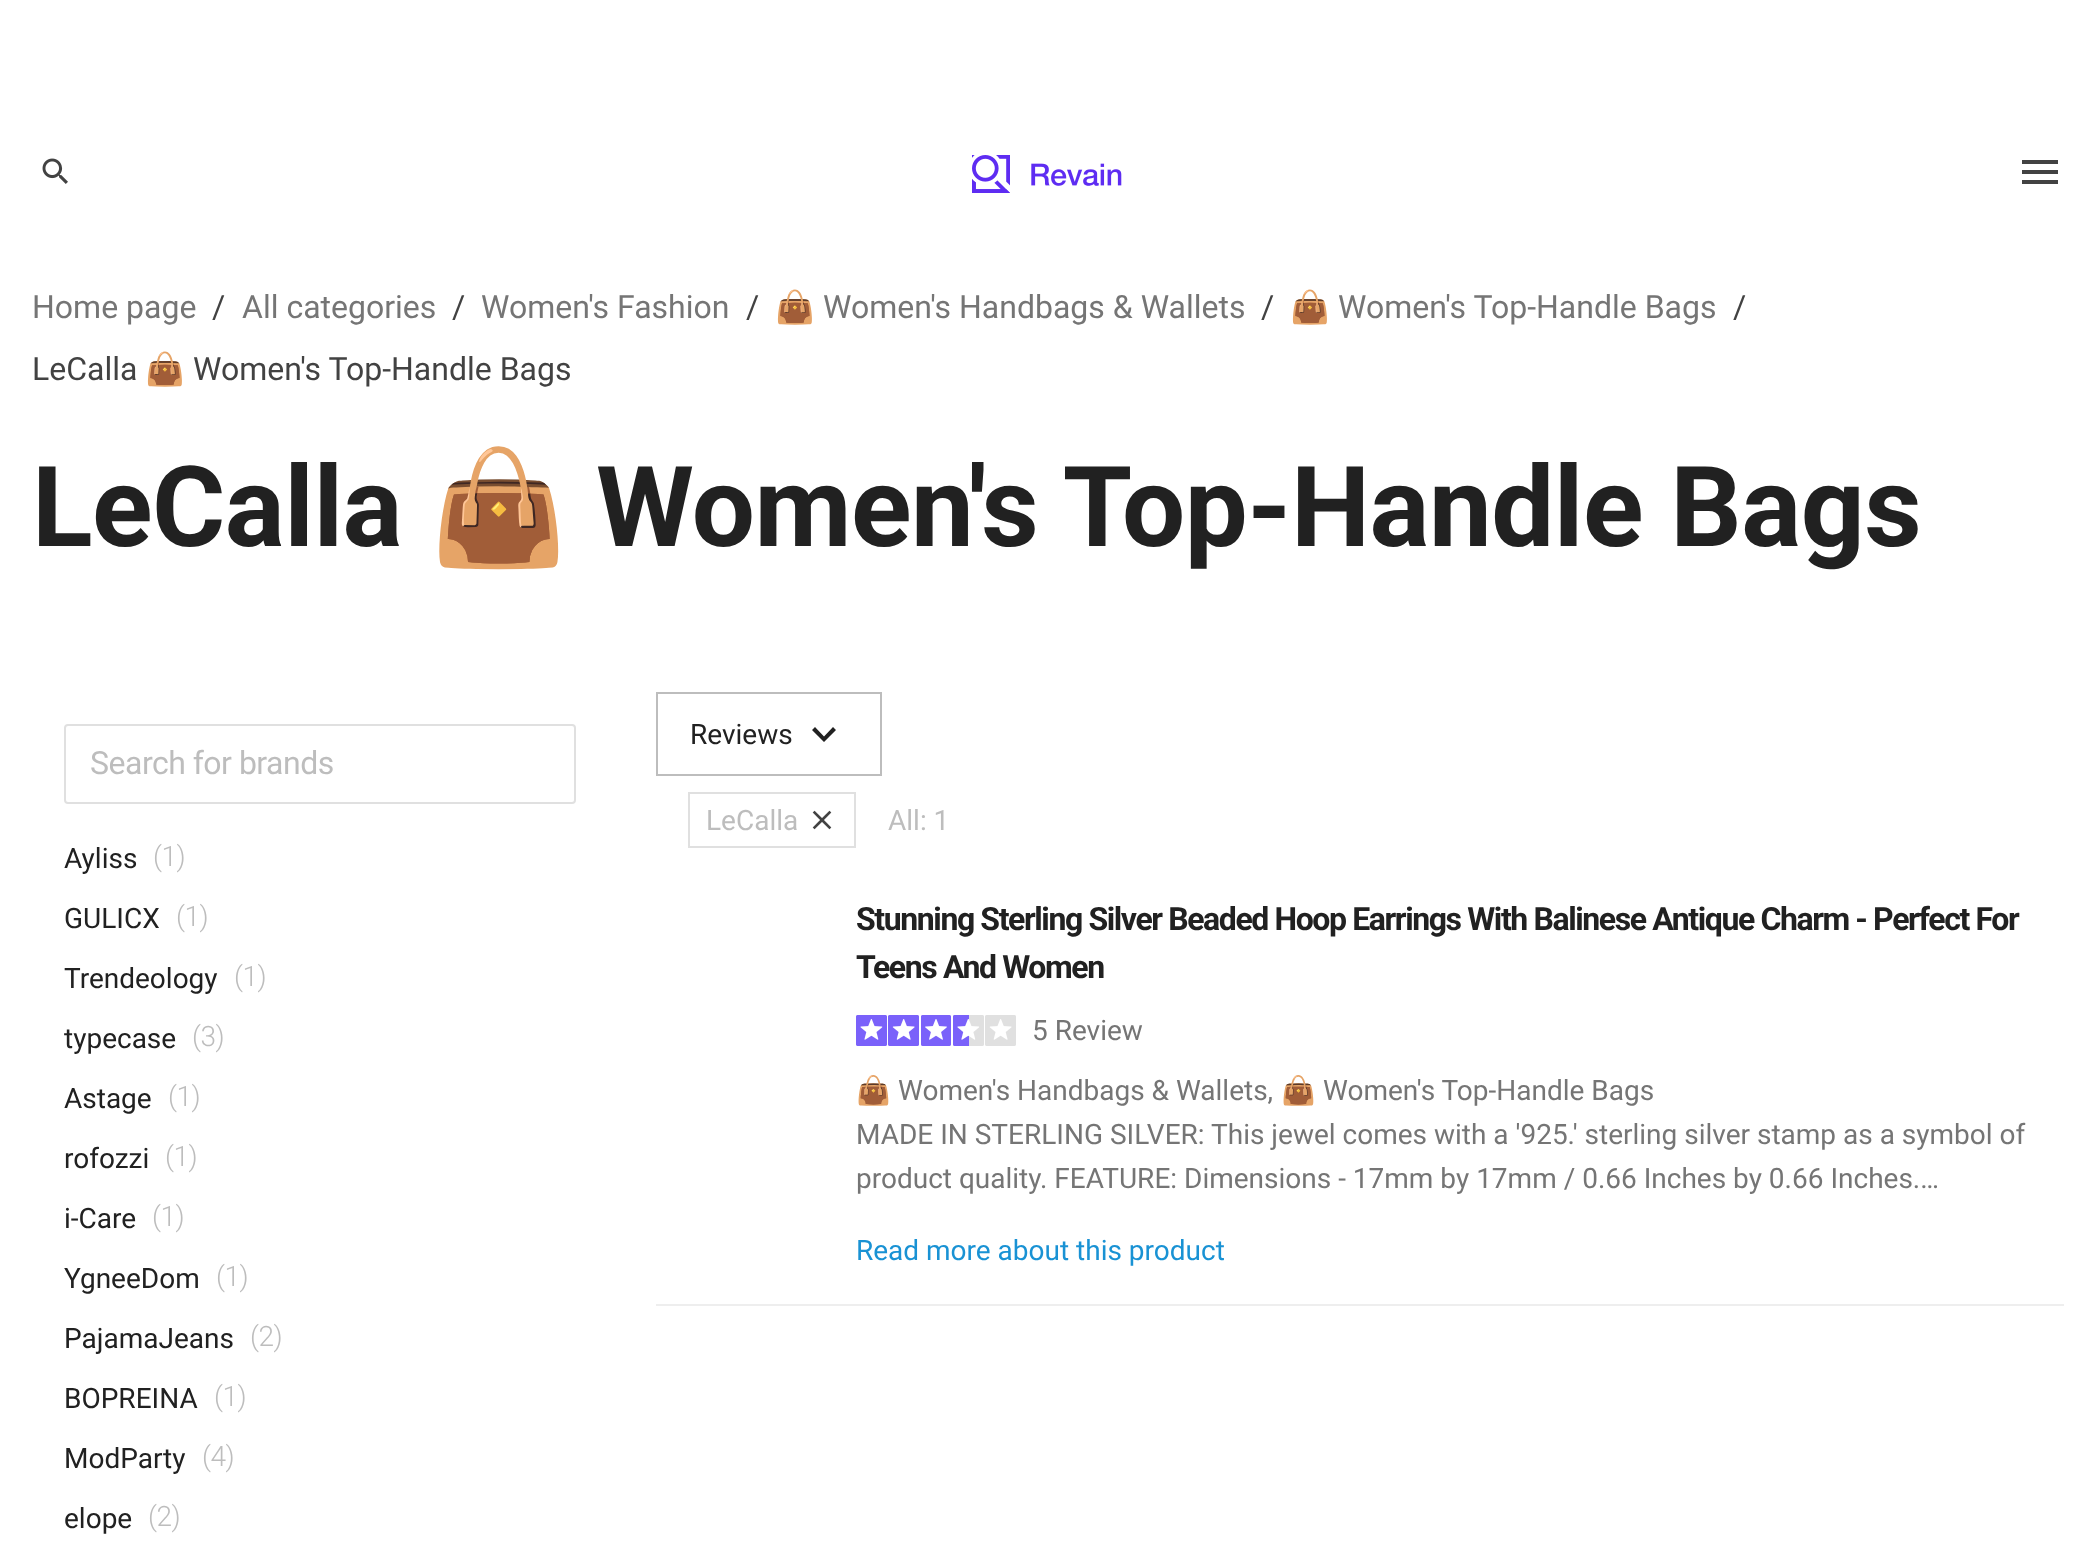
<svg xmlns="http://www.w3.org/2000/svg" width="2096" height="1561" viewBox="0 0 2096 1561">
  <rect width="100%" height="100%" fill="rgb(255,255,255)"/>
  <image x="42" y="158" width="26" height="26" href="pic1.png"/>
  <image x="972" y="155" width="150" height="38" href="pic2.png"/>
  <path d="M2022 184H2058V180H2022ZM2022 174H2058V170H2022ZM2022 160V164H2058V160Z" fill="rgb(66,66,66)"/>
  <text x="32" y="318" font-family="Roboto" font-size="32" fill="rgb(117,117,117)">Home page</text>
  <text x="212" y="318" font-family="Roboto" font-size="32" fill="rgb(66,66,66)">/</text>
  <text x="242" y="318" font-family="Roboto" font-size="32" fill="rgb(117,117,117)">All categories</text>
  <text x="452" y="318" font-family="Roboto" font-size="32" fill="rgb(66,66,66)">/</text>
  <text x="481" y="318" font-family="Roboto" font-size="32" fill="rgb(117,117,117)">Women's Fashion</text>
  <text x="746" y="318" font-family="Roboto" font-size="32" fill="rgb(66,66,66)">/</text>
  <text x="775" y="318" font-family="Noto Color Emoji" font-size="32" fill="rgb(117,117,117)">👜</text>
  <text x="823" y="318" font-family="Roboto" font-size="32" fill="rgb(117,117,117)">Women's Handbags &amp; Wallets</text>
  <text x="1261" y="318" font-family="Roboto" font-size="32" fill="rgb(66,66,66)">/</text>
  <text x="1290" y="318" font-family="Noto Color Emoji" font-size="32" fill="rgb(117,117,117)">👜</text>
  <text x="1338" y="318" font-family="Roboto" font-size="32" fill="rgb(117,117,117)">Women's Top-Handle Bags</text>
  <g font-family="Roboto" font-size="32" fill="rgb(66,66,66)">
    <text x="1733" y="318">/</text>
    <text x="32" y="380">LeCalla</text>
  </g>
  <text x="145" y="380" font-family="Noto Color Emoji" font-size="32" fill="rgb(66,66,66)">👜</text>
  <text x="193" y="380" font-family="Roboto" font-size="32" fill="rgb(66,66,66)">Women's Top-Handle Bags</text>
  <text x="32" y="546" font-family="Roboto" font-size="112" font-weight="bold" letter-spacing="-0.5" fill="rgb(33,33,33)">LeCalla</text>
  <text x="429" y="546" font-family="Noto Color Emoji" font-size="112" font-weight="bold" letter-spacing="-0.5" fill="rgb(33,33,33)">👜</text>
  <text x="596" y="546" font-family="Roboto" font-size="112" font-weight="bold" letter-spacing="-0.5" fill="rgb(33,33,33)">Women's Top-Handle Bags</text>
  <rect x="65" y="725" width="510" height="78" rx="3" fill="none" stroke="rgb(224,224,224)" stroke-width="2"/>
  <text x="90" y="774" font-family="Roboto" font-size="32" letter-spacing="-0.5" fill="rgb(189,189,189)">Search for brands</text>
  <text x="64" y="868" font-family="Roboto" font-size="28" fill="rgb(33,33,33)">Ayliss</text>
  <text x="153" y="866" font-family="Roboto" font-size="28" font-weight="300" letter-spacing="-0.5" fill="rgb(189,189,189)">(1)</text>
  <text x="64" y="928" font-family="Roboto" font-size="28" fill="rgb(33,33,33)">GULICX</text>
  <text x="176" y="926" font-family="Roboto" font-size="28" font-weight="300" letter-spacing="-0.5" fill="rgb(189,189,189)">(1)</text>
  <text x="64" y="988" font-family="Roboto" font-size="28" fill="rgb(33,33,33)">Trendeology</text>
  <text x="234" y="986" font-family="Roboto" font-size="28" font-weight="300" letter-spacing="-0.5" fill="rgb(189,189,189)">(1)</text>
  <text x="64" y="1048" font-family="Roboto" font-size="28" fill="rgb(33,33,33)">typecase</text>
  <text x="192" y="1046" font-family="Roboto" font-size="28" font-weight="300" letter-spacing="-0.5" fill="rgb(189,189,189)">(3)</text>
  <text x="64" y="1108" font-family="Roboto" font-size="28" fill="rgb(33,33,33)">Astage</text>
  <text x="168" y="1106" font-family="Roboto" font-size="28" font-weight="300" letter-spacing="-0.5" fill="rgb(189,189,189)">(1)</text>
  <text x="64" y="1168" font-family="Roboto" font-size="28" fill="rgb(33,33,33)">rofozzi</text>
  <text x="165" y="1166" font-family="Roboto" font-size="28" font-weight="300" letter-spacing="-0.5" fill="rgb(189,189,189)">(1)</text>
  <text x="64" y="1228" font-family="Roboto" font-size="28" fill="rgb(33,33,33)">i-Care</text>
  <text x="152" y="1226" font-family="Roboto" font-size="28" font-weight="300" letter-spacing="-0.5" fill="rgb(189,189,189)">(1)</text>
  <text x="64" y="1288" font-family="Roboto" font-size="28" fill="rgb(33,33,33)">YgneeDom</text>
  <text x="216" y="1286" font-family="Roboto" font-size="28" font-weight="300" letter-spacing="-0.5" fill="rgb(189,189,189)">(1)</text>
  <text x="64" y="1348" font-family="Roboto" font-size="28" fill="rgb(33,33,33)">PajamaJeans</text>
  <text x="250" y="1346" font-family="Roboto" font-size="28" font-weight="300" letter-spacing="-0.5" fill="rgb(189,189,189)">(2)</text>
  <text x="64" y="1408" font-family="Roboto" font-size="28" fill="rgb(33,33,33)">BOPREINA</text>
  <text x="214" y="1406" font-family="Roboto" font-size="28" font-weight="300" letter-spacing="-0.5" fill="rgb(189,189,189)">(1)</text>
  <text x="64" y="1468" font-family="Roboto" font-size="28" fill="rgb(33,33,33)">ModParty</text>
  <text x="202" y="1466" font-family="Roboto" font-size="28" font-weight="300" letter-spacing="-0.5" fill="rgb(189,189,189)">(4)</text>
  <text x="64" y="1528" font-family="Roboto" font-size="28" fill="rgb(33,33,33)">elope</text>
  <text x="148" y="1526" font-family="Roboto" font-size="28" font-weight="300" letter-spacing="-0.5" fill="rgb(189,189,189)">(2)</text>
  <rect x="657" y="693" width="224" height="82" fill="none" stroke="rgb(189,189,189)" stroke-width="2"/>
  <text x="690" y="744" font-family="Roboto" font-size="28" fill="rgb(33,33,33)">Reviews</text>
  <path d="M815 727L824 736.5L833 727L836 730L824 742L812 730Z" fill="rgb(33,33,33)"/>
  <rect x="689" y="793" width="166" height="54" fill="none" stroke="rgb(224,224,224)" stroke-width="2"/>
  <text x="706" y="830" font-family="Roboto" font-size="28" fill="rgb(189,189,189)">LeCalla</text>
  <image x="812" y="810" width="20" height="20" href="pic3.png"/>
  <text x="888" y="830" font-family="Roboto" font-size="28" fill="rgb(189,189,189)">All: 1</text>
  <rect x="656" y="1304" width="1408" height="2" fill="rgb(238,238,238)"/>
  <g font-family="Roboto" font-size="32" font-weight="bold" letter-spacing="-1.4" fill="rgb(33,33,33)">
    <text>
      <tspan x="856" y="930">Stunning Sterling Silver Beaded Hoop Earrings With Balinese Antique Charm - Perfect For</tspan>
      <tspan x="856" y="978">Teens And Women</tspan>
    </text>
  </g>
  <image x="856" y="1015" width="160" height="31" href="pic4.png"/>
  <text x="1032" y="1040" font-family="Roboto" font-size="28" fill="rgb(117,117,117)">5 Review</text>
  <text x="856" y="1100" font-family="Noto Color Emoji" font-size="28" fill="rgb(117,117,117)">👜</text>
  <text x="898" y="1100" font-family="Roboto" font-size="28" fill="rgb(117,117,117)">Women's Handbags &amp; Wallets,</text>
  <text x="1281" y="1100" font-family="Noto Color Emoji" font-size="28" fill="rgb(117,117,117)">👜</text>
  <g font-family="Roboto" font-size="28" fill="rgb(117,117,117)">
    <text x="1323" y="1100">Women's Top-Handle Bags</text>
    <text>
      <tspan x="856" y="1144">MADE IN STERLING SILVER: This jewel comes with a '925.' sterling silver stamp as a symbol of</tspan>
      <tspan x="856" y="1188">product quality. FEATURE: Dimensions - 17mm by 17mm / 0.66 Inches by 0.66 Inches.…</tspan>
    </text>
  </g>
  <text x="856" y="1260" font-family="Roboto" font-size="28" fill="rgb(25,146,212)">Read more about this product</text>
</svg>
